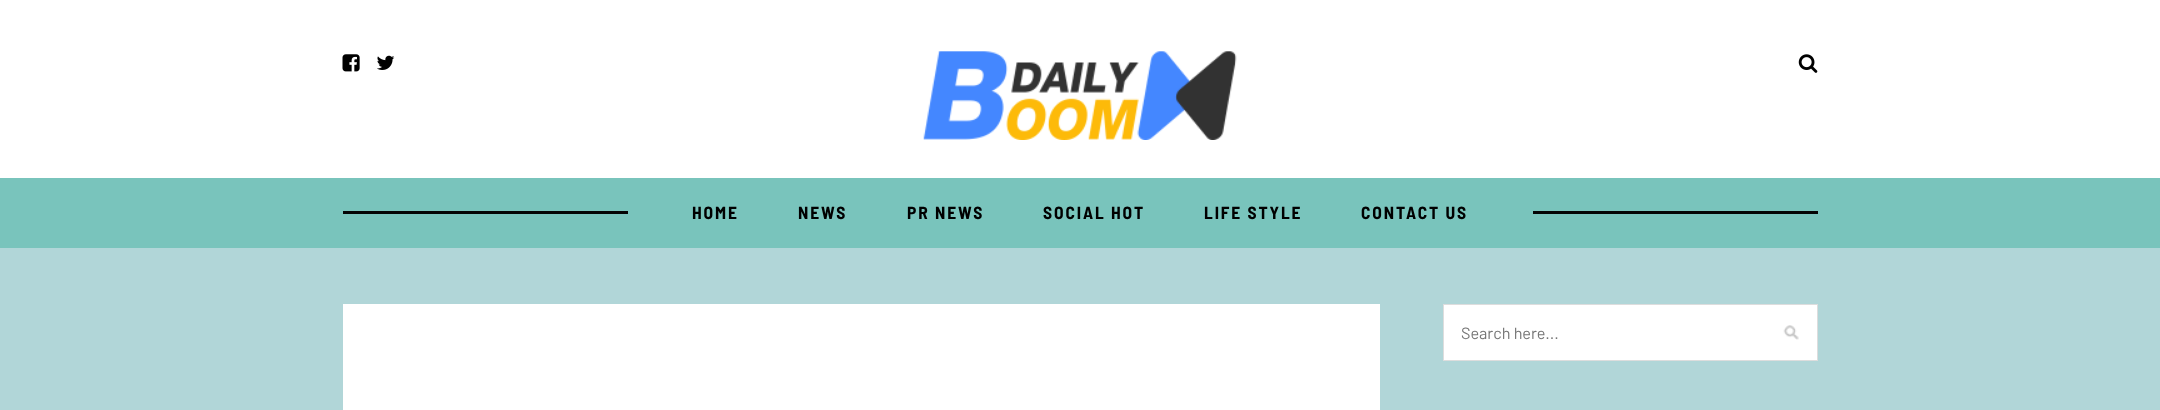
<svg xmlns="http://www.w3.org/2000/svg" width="2160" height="410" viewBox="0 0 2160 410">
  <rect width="100%" height="100%" fill="rgb(177,214,216)"/>
  <rect x="0" y="0" width="2160" height="178" fill="rgb(255,255,255)"/>
  <image x="342" y="54" width="18" height="18" href="pic1.png"/>
  <image x="377" y="55" width="18" height="15" href="pic2.png"/>
  <image x="923" y="51" width="314" height="89" href="pic3.png"/>
  <image x="1798" y="54" width="20" height="19" href="pic4.png"/>
  <rect x="0" y="178" width="2160" height="70" fill="rgb(121,196,188)"/>
  <rect x="343" y="211" width="1475" height="3" fill="rgb(4,4,4)"/>
  <rect x="628" y="211" width="905" height="3" fill="rgb(121,196,188)"/>
  <g font-family="Barlow Semi Condensed" font-size="17.5" font-weight="bold" letter-spacing="1.9" fill="rgb(0,0,0)">
    <text x="692" y="219">HOME</text>
    <text x="798" y="219">NEWS</text>
    <text x="907" y="219">PR NEWS</text>
    <text x="1043" y="219">SOCIAL HOT</text>
    <text x="1204" y="219">LIFE STYLE</text>
    <text x="1361" y="219">CONTACT US</text>
  </g>
  <rect x="343" y="304" width="1037" height="106" fill="rgb(255,255,255)"/>
  <rect x="1444" y="305" width="373" height="55" fill="rgb(255,255,255)"/>
  <image x="1783" y="325" width="16" height="15" href="pic5.png"/>
  <rect x="1443.5" y="304.5" width="374" height="56" fill="none" stroke="rgb(221,221,221)"/>
  <text x="1461" y="339" font-family="Barlow" font-size="16.25" fill="rgb(117,117,117)">Search here...</text>
</svg>
